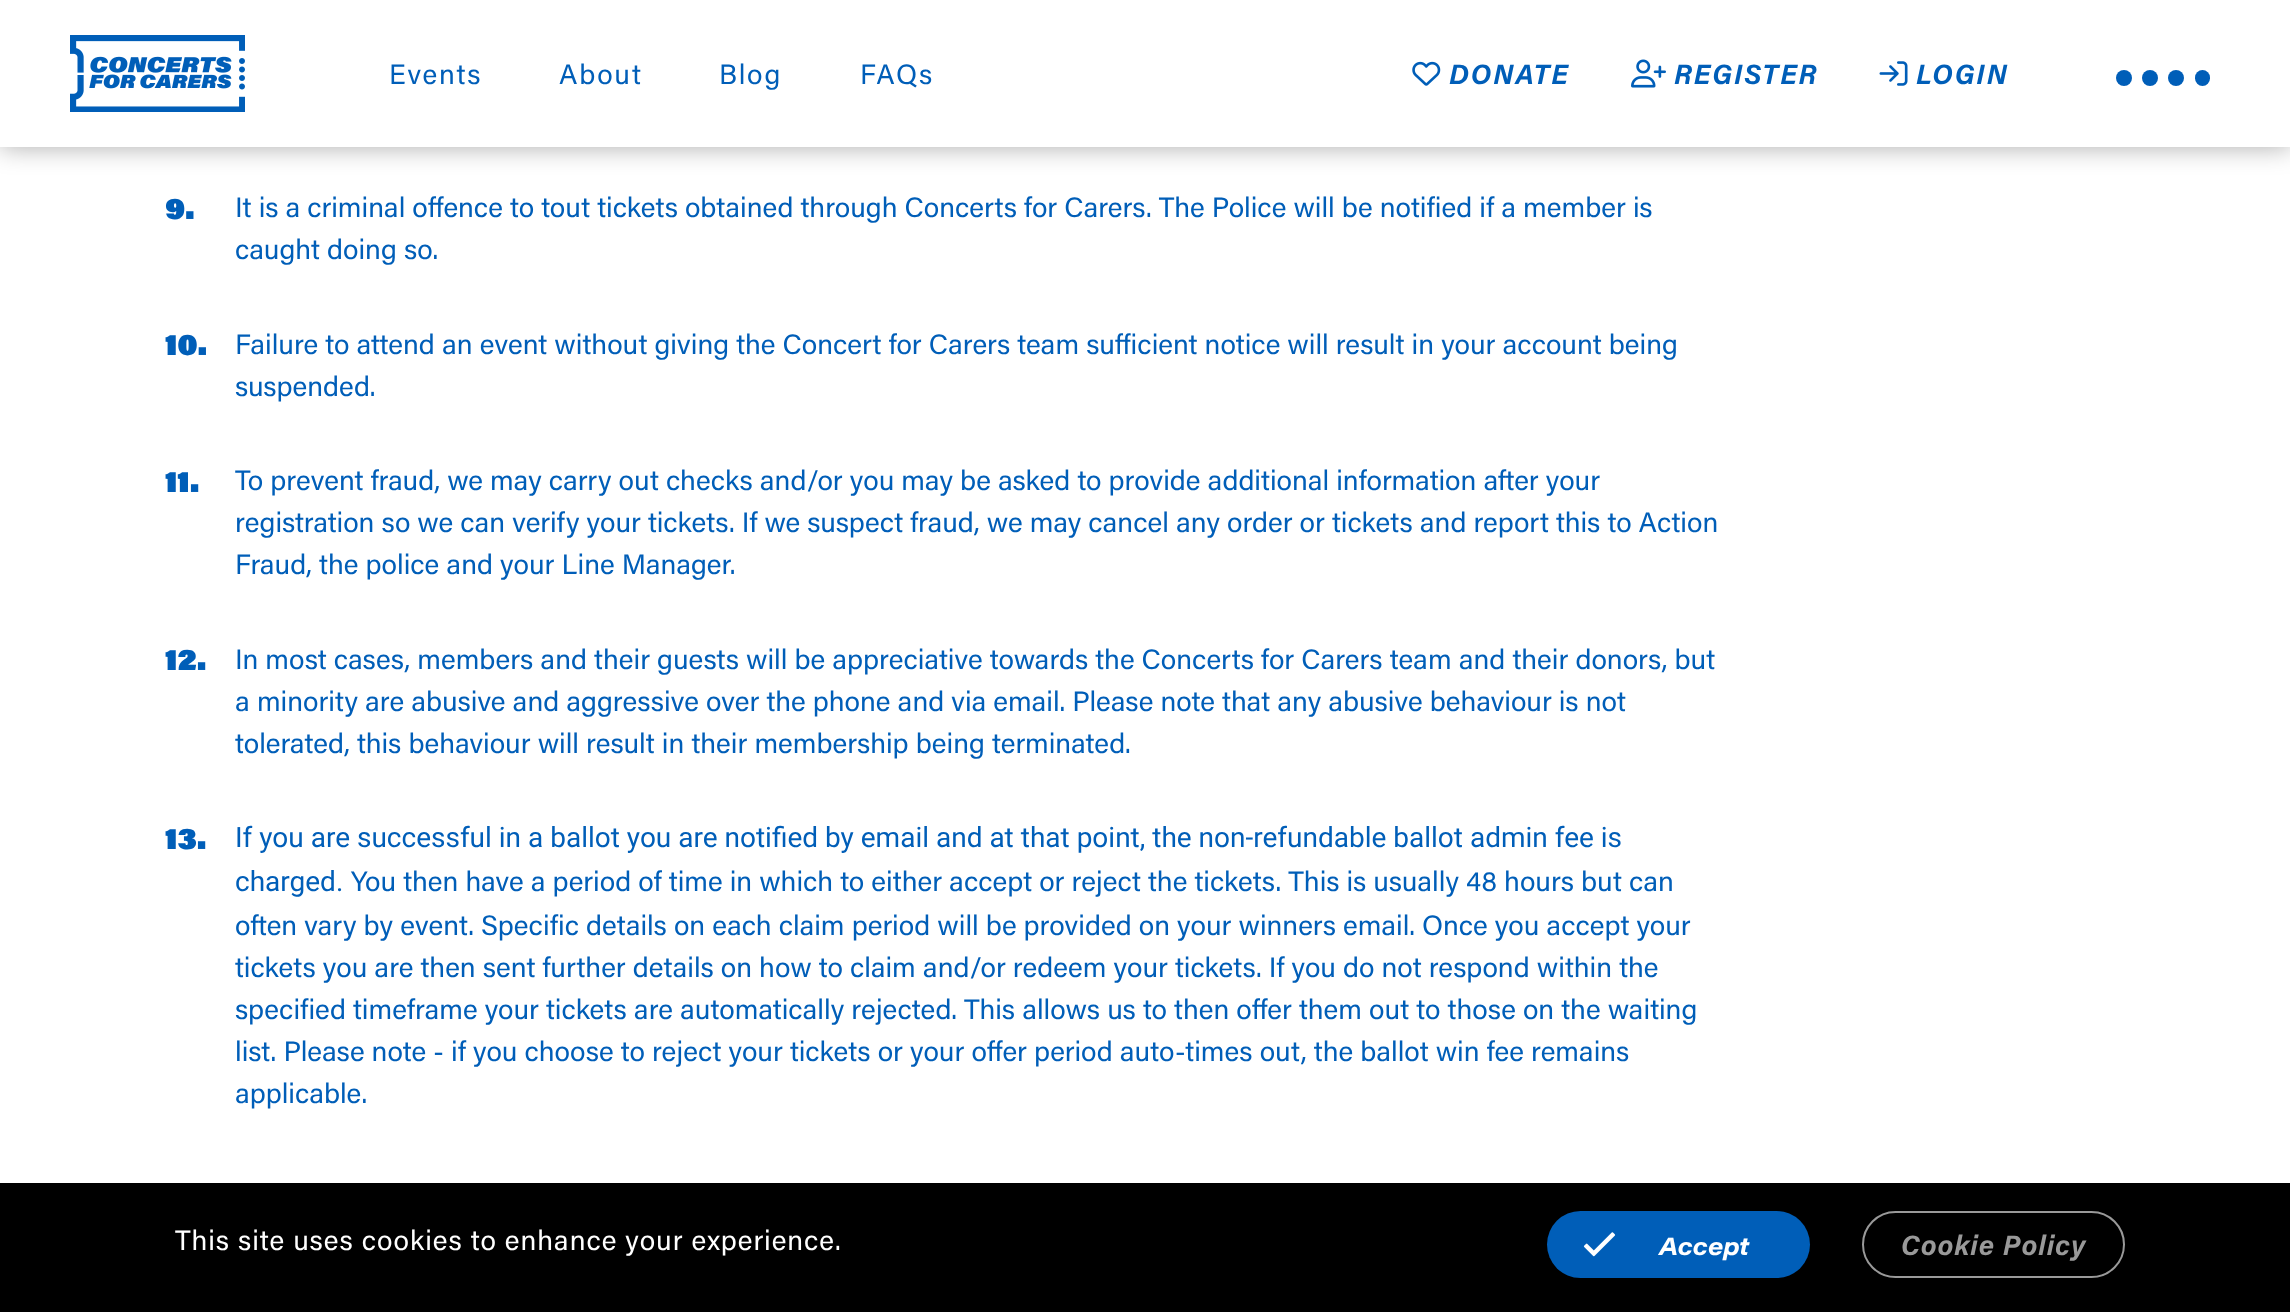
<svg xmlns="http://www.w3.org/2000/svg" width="2290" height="1312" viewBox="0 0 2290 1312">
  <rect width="100%" height="100%" fill="rgb(255,255,255)"/>
  <rect x="0" y="0" width="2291" height="147" fill="rgba(0,0,0,0.33)" filter="blur(13px)"/>
  <rect x="0" y="0" width="2290" height="147" fill="rgb(255,255,255)"/>
  <image x="70" y="35" width="175" height="77" href="pic1.png"/>
  <g font-family="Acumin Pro" font-size="28" letter-spacing="1.75" fill="rgb(0,94,184)">
    <text x="389" y="84">Events</text>
    <text x="559" y="84">About</text>
    <text x="719" y="84">Blog</text>
    <text x="860" y="84">FAQs</text>
  </g>
  <image x="1412" y="61" width="29" height="25" href="pic2.png"/>
  <text x="1449" y="84" font-family="Acumin Pro" font-size="28" font-weight="bold" font-style="italic" letter-spacing="1.75" fill="rgb(0,94,184)">DONATE</text>
  <image x="1631" y="59" width="35" height="29" href="pic3.png"/>
  <text x="1674" y="84" font-family="Acumin Pro" font-size="28" font-weight="bold" font-style="italic" letter-spacing="1.75" fill="rgb(0,94,184)">REGISTER</text>
  <image x="1879" y="61" width="29" height="25" href="pic4.png"/>
  <text x="1916" y="84" font-family="Acumin Pro" font-size="28" font-weight="bold" font-style="italic" letter-spacing="1.75" fill="rgb(0,94,184)">LOGIN</text>
  <circle cx="2124" cy="78" r="8" fill="rgb(0,94,184)"/>
  <circle cx="2150" cy="78" r="8" fill="rgb(0,94,184)"/>
  <circle cx="2176" cy="78" r="8" fill="rgb(0,94,184)"/>
  <rect x="2195" y="70" width="15" height="16" rx="7.5" fill="rgb(0,94,184)"/>
  <text x="165" y="219" font-family="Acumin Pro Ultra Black" font-size="30" font-weight="800" fill="rgb(0,94,184)">9.</text>
  <g font-family="Acumin Pro" font-size="28" fill="rgb(0,94,184)">
    <text>
      <tspan x="235" y="217">It is a criminal offence to tout tickets obtained through Concerts for Carers. The Police will be notified if a member is</tspan>
      <tspan x="235" y="259">caught doing so.</tspan>
    </text>
  </g>
  <text x="165" y="355" font-family="Acumin Pro Ultra Black" font-size="30" font-weight="800" fill="rgb(0,94,184)">10.</text>
  <g font-family="Acumin Pro" font-size="28" fill="rgb(0,94,184)">
    <text>
      <tspan x="235" y="354">Failure to attend an event without giving the Concert for Carers team sufficient notice will result in your account being</tspan>
      <tspan x="235" y="396">suspended.</tspan>
    </text>
  </g>
  <g font-family="Acumin Pro Ultra Black" font-size="30" font-weight="800" fill="rgb(0,94,184)">
    <text x="165" y="492">11</text>
    <text x="190" y="492">.</text>
  </g>
  <g font-family="Acumin Pro" font-size="28" fill="rgb(0,94,184)">
    <text>
      <tspan x="235" y="490">To prevent fraud, we may carry out checks and/or you may be asked to provide additional information after your</tspan>
      <tspan x="235" y="532">registration so we can verify your tickets. If we suspect fraud, we may cancel any order or tickets and report this to Action</tspan>
      <tspan x="235" y="574">Fraud, the police and your Line Manager.</tspan>
    </text>
  </g>
  <g font-family="Acumin Pro Ultra Black" font-size="30" font-weight="800" fill="rgb(0,94,184)">
    <text x="165" y="670">12</text>
    <text x="197" y="670">.</text>
  </g>
  <g font-family="Acumin Pro" font-size="28" fill="rgb(0,94,184)">
    <text>
      <tspan x="235" y="669">In most cases, members and their guests will be appreciative towards the Concerts for Carers team and their donors, but</tspan>
      <tspan x="235" y="711">a minority are abusive and aggressive over the phone and via email. Please note that any abusive behaviour is not</tspan>
      <tspan x="235" y="753">tolerated, this behaviour will result in their membership being terminated.</tspan>
    </text>
  </g>
  <g font-family="Acumin Pro Ultra Black" font-size="30" font-weight="800" fill="rgb(0,94,184)">
    <text x="165" y="849">13</text>
    <text x="197" y="849">.</text>
  </g>
  <g font-family="Roboto" font-size="28" fill="rgb(0,94,184)">
    <text>
      <tspan x="235" y="847">If you are successful in a ballot you are notified by email and at that point, the non-refundable ballot admin fee is</tspan>
      <tspan x="235" y="891">charged.</tspan>
    </text>
  </g>
  <g font-family="Acumin Pro" font-size="28" fill="rgb(0,94,184)">
    <text x="351" y="891">You then have a period of time in which to either accept or reject the tickets. This is usually 48 hours but can</text>
    <text>
      <tspan x="235" y="935">often vary by event. Specific details on each claim period will be provided on your winners email. Once you accept your</tspan>
      <tspan x="235" y="977">tickets you are then sent further details on how to claim and/or redeem your tickets. If you do not respond within the</tspan>
      <tspan x="235" y="1019">specified timeframe your tickets are automatically rejected. This allows us to then offer them out to those on the waiting</tspan>
      <tspan x="235" y="1061">list. Please note - if you choose to reject your tickets or your offer period auto-times out, the ballot win fee remains</tspan>
      <tspan x="235" y="1103">applicable.</tspan>
    </text>
  </g>
  <rect x="0" y="1183" width="2290" height="129" fill="rgb(0,0,0)"/>
  <text x="175" y="1250" font-family="Acumin Pro" font-size="28" letter-spacing="0.95" fill="rgb(255,255,255)">This site uses cookies to enhance your experience.</text>
  <rect x="1863" y="1212" width="261" height="65" rx="32.5" fill="none" stroke="rgb(153,153,153)" stroke-width="2"/>
  <text x="1901" y="1255" font-family="Acumin Pro" font-size="28" font-weight="bold" font-style="italic" letter-spacing="0.95" fill="rgb(153,153,153)">Cookie Policy</text>
  <rect x="1547" y="1211" width="263" height="67" rx="33.5" fill="rgb(0,94,184)"/>
  <image x="1583" y="1232" width="33" height="25" href="pic5.png"/>
  <text x="1659" y="1255" font-family="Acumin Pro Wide" font-size="24.5" font-weight="bold" font-style="italic" fill="rgb(255,255,255)">Accept</text>
</svg>
